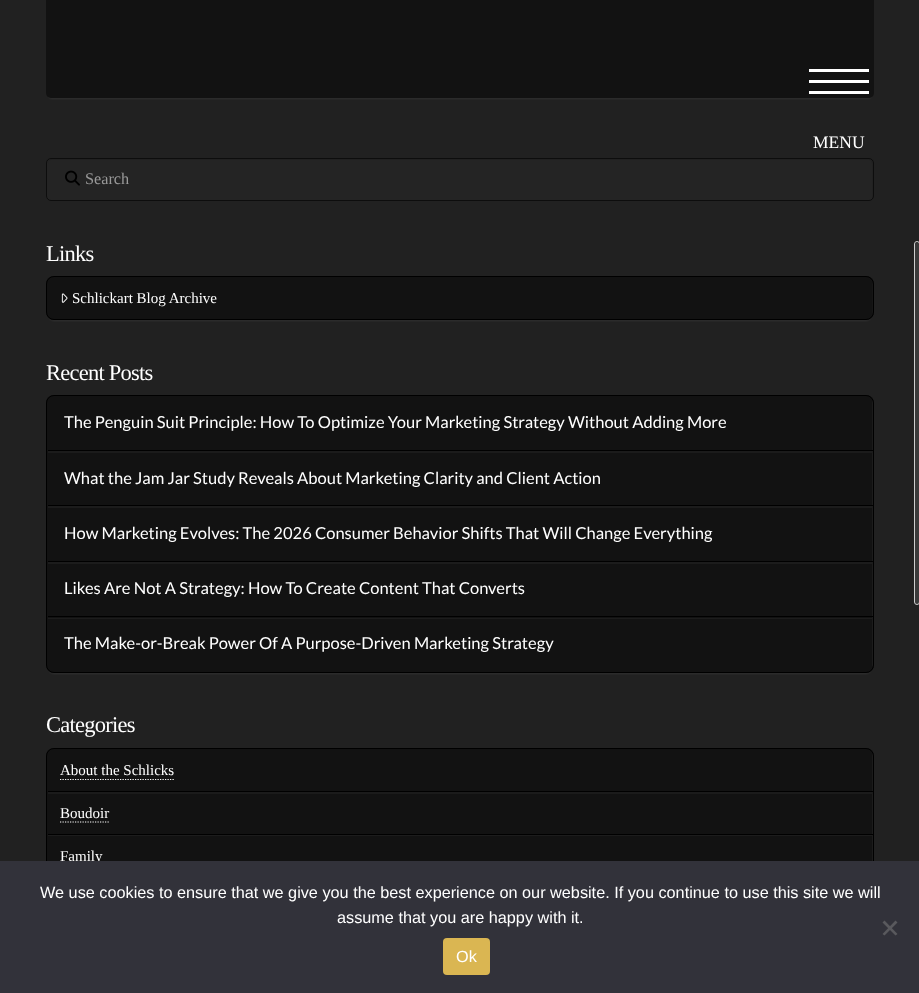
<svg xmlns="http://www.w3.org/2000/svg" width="919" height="993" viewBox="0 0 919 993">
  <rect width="100%" height="100%" fill="rgb(33,33,33)"/>
  <rect x="49" y="-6" width="822" height="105" rx="2.5" fill="rgba(255,255,255,0.07)" filter="blur(1px)"/>
  <rect x="46" y="-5" width="828" height="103" rx="5" fill="rgb(18,18,18)"/>
  <rect x="809" y="80" width="60" height="3" fill="rgb(255,255,255)"/>
  <rect x="809" y="69" width="60" height="3" fill="rgb(255,255,255)"/>
  <rect x="809" y="91" width="60" height="3" fill="rgb(255,255,255)"/>
  <text x="813" y="148" font-family="Liberation Serif" font-size="17.5" fill="rgb(255,255,255)">MENU</text>
  <rect x="46" y="158" width="828" height="43" rx="5" fill="rgb(36,36,36)"/>
  <path d="M51 160H869C871 160 872 162 872 164V199C873 198 873 197 873 196V163C873 161 871 159 869 159H52C50 159 48 161 48 163V164C48 162 49 160 51 160Z" fill="rgb(33,33,33)"/>
  <rect x="46.5" y="158.5" width="827" height="42" rx="4.5" fill="none" stroke="rgb(13,13,13)"/>
  <image x="65" y="170" width="15" height="16" href="pic1.png"/>
  <text x="85" y="184" font-family="Liberation Serif" font-size="16.25" fill="rgb(153,153,153)">Search</text>
  <text x="46" y="261" font-family="Liberation Serif" font-size="22.5" letter-spacing="-0.75" fill="rgb(255,255,255)">Links</text>
  <rect x="49" y="283" width="822" height="38" rx="5" fill="rgba(255,255,255,0.07)" filter="blur(1px)"/>
  <rect x="46" y="276" width="828" height="44" rx="8" fill="rgb(18,18,18)"/>
  <rect x="46.5" y="276.5" width="827" height="43" rx="7.5" fill="none" stroke="rgba(0,0,0,0.95)"/>
  <path d="M872.5 315.5L873 313V284L872.5 281.5Z" fill="rgba(255,255,255,0.04)"/>
  <image x="61" y="293" width="7" height="10" href="pic2.png"/>
  <text x="72" y="303" font-family="Liberation Serif" font-size="15" fill="rgb(255,255,255)">Schlickart Blog Archive</text>
  <text x="46" y="380" font-family="Liberation Serif" font-size="22.5" letter-spacing="-0.75" fill="rgb(255,255,255)">Recent Posts</text>
  <rect x="49" y="401" width="822" height="273" rx="5" fill="rgba(255,255,255,0.07)" filter="blur(1px)"/>
  <rect x="46" y="395" width="828" height="278" rx="8" fill="rgb(18,18,18)"/>
  <rect x="46.5" y="395.5" width="827" height="277" rx="7.5" fill="none" stroke="rgba(0,0,0,0.95)"/>
  <path d="M48 451V453H873V402L872 400V451Z" fill="rgba(255,255,255,0.04)"/>
  <rect x="48" y="450" width="825" height="1" fill="rgba(0,0,0,0.95)"/>
  <text x="64" y="428" font-family="Lato" font-size="16.55" fill="rgb(255,255,255)">The Penguin Suit Principle: How To Optimize Your Marketing Strategy Without Adding More</text>
  <path d="M48 506V508H873V453H872V506Z" fill="rgb(28,28,28)"/>
  <rect x="48" y="505" width="825" height="1" fill="rgba(0,0,0,0.95)"/>
  <text x="64" y="484" font-family="Lato" font-size="16.55" fill="rgb(255,255,255)">What the Jam Jar Study Reveals About Marketing Clarity and Client Action</text>
  <path d="M48 562V564H873V508H872V562Z" fill="rgb(28,28,28)"/>
  <rect x="48" y="561" width="825" height="1" fill="rgba(0,0,0,0.95)"/>
  <text x="64" y="539" font-family="Lato" font-size="16.55" fill="rgb(255,255,255)">How Marketing Evolves: The 2026 Consumer Behavior Shifts That Will Change Everything</text>
  <path d="M48 618V619H873V564H872V618Z" fill="rgb(28,28,28)"/>
  <rect x="48" y="616" width="825" height="1" fill="rgba(0,0,0,0.95)"/>
  <text x="64" y="594" font-family="Lato" font-size="16.55" fill="rgb(255,255,255)">Likes Are Not A Strategy: How To Create Content That Converts</text>
  <path d="M872 667L873 665V619H872Z" fill="rgb(28,28,28)"/>
  <text x="64" y="649" font-family="Lato" font-size="16.55" fill="rgb(255,255,255)">The Make-or-Break Power Of A Purpose-Driven Marketing Strategy</text>
  <text x="46" y="732" font-family="Liberation Serif" font-size="22.5" letter-spacing="-0.75" fill="rgb(255,255,255)">Categories</text>
  <rect x="46" y="748" width="828" height="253" rx="8" fill="rgb(18,18,18)"/>
  <rect x="46.5" y="748.5" width="827" height="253" rx="7.5" fill="none" stroke="rgba(0,0,0,0.95)"/>
  <path d="M48 792V794H873V755L872 753V792Z" fill="rgba(255,255,255,0.04)"/>
  <rect x="48" y="791" width="825" height="1" fill="rgba(0,0,0,0.95)"/>
  <text x="60" y="775" font-family="Liberation Serif" font-size="15" fill="rgb(255,255,255)">About the Schlicks</text>
  <path d="M60 779.5H174" fill="none" stroke="rgb(255,255,255)" stroke-width="1.2" stroke-dasharray="1.25 1.25"/>
  <path d="M48 835V836H873V794H872V835Z" fill="rgb(28,28,28)"/>
  <rect x="48" y="834" width="825" height="1" fill="rgba(0,0,0,0.95)"/>
  <text x="60" y="818" font-family="Liberation Serif" font-size="15" fill="rgb(255,255,255)">Boudoir</text>
  <path d="M60 822H109" fill="none" stroke="rgb(255,255,255)" stroke-width="1.2" stroke-dasharray="1.25 1.25"/>
  <path d="M48 879V880H873V836H872V879Z" fill="rgb(28,28,28)"/>
  <text x="60" y="861" font-family="Liberation Serif" font-size="15" fill="rgb(255,255,255)">Family</text>
  <rect x="915" y="243" width="4" height="361" rx="2" fill="rgb(59,59,59)"/>
  <rect x="914.5" y="241.5" width="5" height="363" rx="2.5" fill="none" stroke="rgb(206,206,206)"/>
  <rect x="0" y="861" width="919" height="132" fill="rgb(50,50,58)"/>
  <g font-family="Liberation Sans" font-size="16.25" fill="rgb(255,255,255)">
    <text x="40" y="898">We use cookies to ensure that we give you the best experience on our website. If you continue to use this site we will</text>
    <text x="337" y="923">assume that you are happy with it.</text>
  </g>
  <path d="M895.5 920.5L897.5 922.5L884.5 935.5L882.5 934Z" fill="rgb(89,89,93)"/>
  <path d="M882.5 922.5L884.5 920.5L897.5 934L895.5 935.5Z" fill="rgb(89,89,93)"/>
  <rect x="443" y="938" width="47" height="37" rx="4" fill="rgb(218,182,82)"/>
  <text x="456" y="962" font-family="Liberation Sans" font-size="16.25" fill="rgb(255,255,255)">Ok</text>
</svg>
